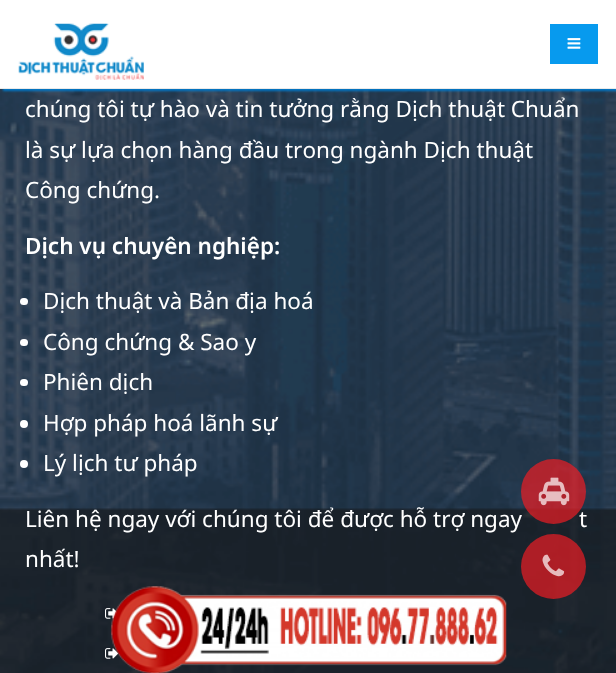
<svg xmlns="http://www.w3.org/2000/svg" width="616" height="673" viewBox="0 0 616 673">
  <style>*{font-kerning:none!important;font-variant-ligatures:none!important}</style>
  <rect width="100%" height="100%" fill="rgb(255,255,255)"/>
  <image x="0" y="89" width="616" height="584" href="pic3.png"/>
  <rect x="3" y="3" width="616" height="88" fill="rgb(0,119,200)" filter="blur(1px)"/>
  <rect x="1" y="1" width="615" height="87" fill="rgb(255,255,255)"/>
  <rect x="0" y="88" width="616" height="1" fill="rgb(234,234,234)"/>
  <image x="18" y="23" width="126" height="57" href="pic1.png"/>
  <rect x="550" y="24" width="48" height="40" fill="rgb(7,154,238)"/>
  <image x="567" y="38" width="14" height="11" href="pic2.png"/>
  <g font-family="Noto Sans" font-size="22.5" fill="rgb(255,255,255)">
    <text>
      <tspan x="25" y="117">chúng tôi tự hào và tin tưởng rằng Dịch thuật Chuẩn</tspan>
      <tspan x="25" y="158">là sự lựa chọn hàng đầu trong ngành Dịch thuật</tspan>
      <tspan x="25" y="198">Công chứng.</tspan>
    </text>
  </g>
  <text x="25" y="254" font-family="Noto Sans" font-size="22.5" font-weight="600" fill="rgb(255,255,255)">Dịch vụ chuyên nghiệp:</text>
  <rect x="20" y="298" width="8" height="7" rx="3.5" fill="rgb(255,255,255)"/>
  <text x="43" y="309" font-family="Noto Sans" font-size="22.5" fill="rgb(255,255,255)">Dịch thuật và Bản địa hoá</text>
  <rect x="20" y="339" width="8" height="7" rx="3.5" fill="rgb(255,255,255)"/>
  <text x="43" y="350" font-family="Noto Sans" font-size="22.5" fill="rgb(255,255,255)">Công chứng &amp; Sao y</text>
  <rect x="20" y="379" width="8" height="7" rx="3.5" fill="rgb(255,255,255)"/>
  <text x="43" y="390" font-family="Noto Sans" font-size="22.5" fill="rgb(255,255,255)">Phiên dịch</text>
  <circle cx="24" cy="424" r="4" fill="rgb(255,255,255)"/>
  <text x="43" y="431" font-family="Noto Sans" font-size="22.5" fill="rgb(255,255,255)">Hợp pháp hoá lãnh sự</text>
  <circle cx="24" cy="464" r="4" fill="rgb(255,255,255)"/>
  <g font-family="Noto Sans" font-size="22.5" fill="rgb(255,255,255)">
    <text x="43" y="471">Lý lịch tư pháp</text>
    <text x="25" y="527">Liên hệ ngay với chúng tôi để được hỗ trợ ngay</text>
    <text x="579" y="527">t</text>
    <text x="25" y="567">nhất!</text>
  </g>
  <image x="105" y="608" width="12" height="11" href="pic4.png"/>
  <image x="105" y="648" width="14" height="11" href="pic5.png"/>
  <circle cx="553.5" cy="491.5" r="32.5" fill="rgba(237,28,36,0.7)"/>
  <image x="538" y="477" width="32" height="29" href="pic6.png"/>
  <circle cx="553.5" cy="566.5" r="32.5" fill="rgba(237,28,36,0.7)"/>
  <image x="542" y="554" width="23" height="23" href="pic7.png"/>
  <image x="111" y="586" width="396" height="87" href="pic8.png"/>
</svg>
